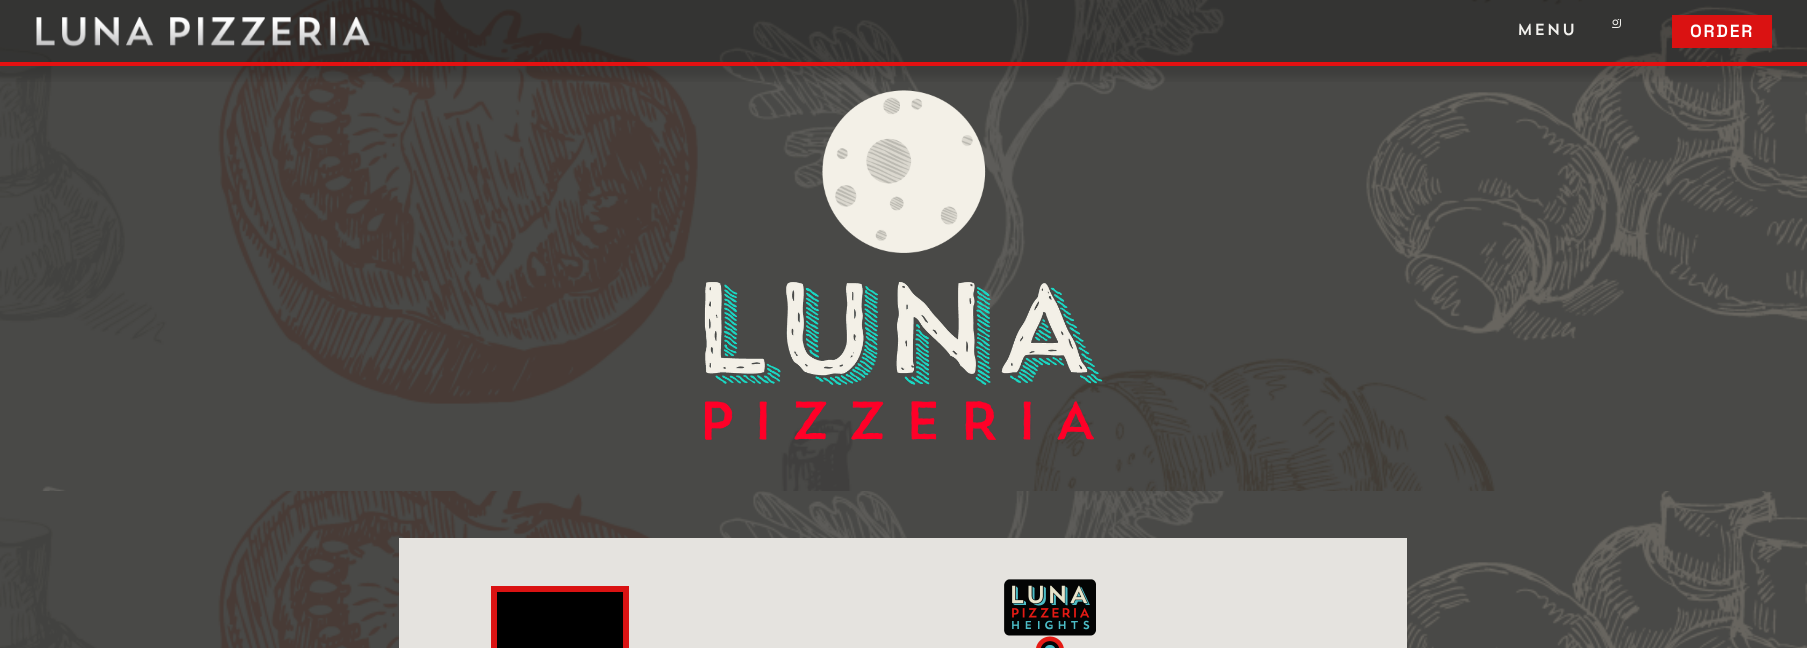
<svg xmlns="http://www.w3.org/2000/svg" width="1807" height="648" viewBox="0 0 1807 648">
  <defs>
    <clipPath id="clip1"><rect x="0" y="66" width="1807" height="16"/></clipPath>
  </defs>
  <rect width="100%" height="100%" fill="rgb(255,255,255)"/>
  <image x="0" y="0" width="1807" height="491" href="pic1.png"/>
  <image x="822" y="90" width="164" height="163" href="pic2.png"/>
  <image x="704" y="282" width="399" height="158" href="pic3.png"/>
  <image x="0" y="491" width="1807" height="157" href="pic4.png"/>
  <image x="399" y="538" width="1008" height="110" href="pic5.png"/>
  <rect x="494" y="589" width="132" height="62" fill="rgb(0,0,0)" stroke="rgb(218,18,18)" stroke-width="6"/>
  <g clip-path="url(#clip1)">
    <rect x="-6" y="0" width="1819" height="78" fill="rgba(0,0,0,0.15)" filter="blur(4px)"/>
  </g>
  <rect x="0" y="0" width="1807" height="62" fill="rgba(0,0,0,0.28)"/>
  <image x="36" y="16" width="335" height="31" href="pic6.png"/>
  <text x="1517" y="35" font-family="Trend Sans" font-size="16" font-weight="200" letter-spacing="1" fill="rgb(242,241,238)">MENU</text>
  <image x="1612" y="19" width="9" height="9" href="pic7.png"/>
  <rect x="1672" y="15" width="100" height="33" fill="rgb(218,18,18)"/>
  <text x="1690" y="37" font-family="Space Grotesk" font-size="17.5" font-weight="600" letter-spacing="1.75" fill="rgb(255,255,255)">ORDER</text>
  <rect x="0" y="62" width="1807" height="4" fill="rgb(228,17,17)"/>
</svg>
